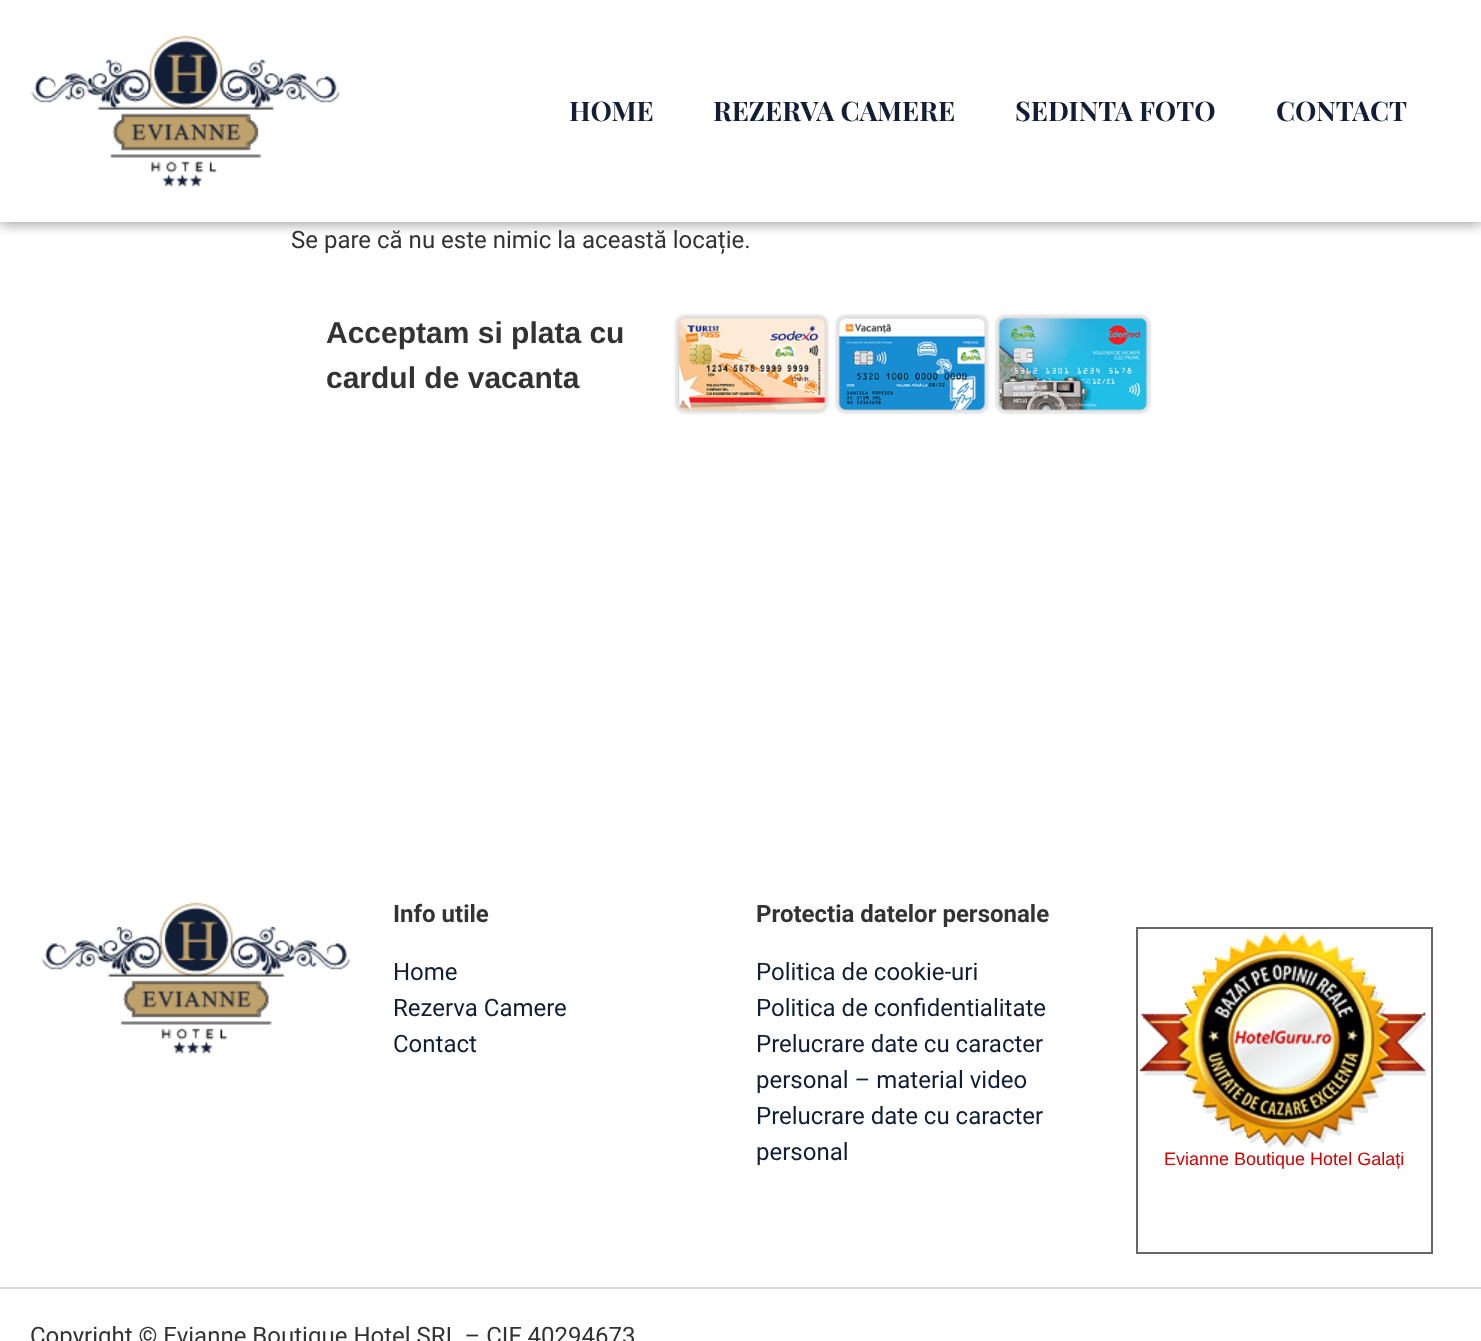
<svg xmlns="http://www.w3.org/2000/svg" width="1481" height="1341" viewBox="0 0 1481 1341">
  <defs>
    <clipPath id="clip1"><rect x="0" y="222" width="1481" height="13"/></clipPath>
  </defs>
  <rect width="100%" height="100%" fill="rgb(255,255,255)"/>
  <g clip-path="url(#clip1)">
    <rect x="0" y="0" width="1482" height="222" rx="1.5" fill="rgba(0,0,0,0.5)" filter="blur(7.5px)"/>
  </g>
  <image x="31" y="35" width="309" height="152" href="pic1.png"/>
  <g font-family="Playfair Display SC" font-size="27" font-weight="bold" fill="rgb(18,30,53)">
    <text x="569" y="121">HOME</text>
    <text x="713" y="121">REZERVA CAMERE</text>
    <text x="1015" y="121">SEDINTA FOTO</text>
    <text x="1276" y="121">CONTACT</text>
  </g>
  <text x="291" y="248" font-family="Roboto" font-size="24" fill="rgb(51,51,51)">Se pare că nu este nimic la această locație.</text>
  <g font-family="Liberation Sans" font-size="30" font-weight="bold" fill="rgb(51,51,51)">
    <text>
      <tspan x="326" y="343">Acceptam si plata cu</tspan>
      <tspan x="326" y="388">cardul de vacanta</tspan>
    </text>
  </g>
  <image x="674" y="314" width="477" height="101" href="pic2.png"/>
  <image x="41" y="902" width="309" height="152" href="pic3.png"/>
  <text x="393" y="922" font-family="Roboto" font-size="24" font-weight="bold" fill="rgb(51,51,51)">Info utile</text>
  <g font-family="Roboto" font-size="24" fill="rgb(18,30,53)">
    <text>
      <tspan x="393" y="980">Home</tspan>
      <tspan x="393" y="1016">Rezerva Camere</tspan>
      <tspan x="393" y="1052">Contact</tspan>
    </text>
  </g>
  <text x="756" y="922" font-family="Roboto" font-size="24" font-weight="bold" fill="rgb(51,51,51)">Protectia datelor personale</text>
  <g font-family="Roboto" font-size="24" fill="rgb(18,30,53)">
    <text>
      <tspan x="756" y="980">Politica de cookie-uri</tspan>
      <tspan x="756" y="1016">Politica de confidentialitate</tspan>
      <tspan x="756" y="1052">Prelucrare date cu caracter</tspan>
      <tspan x="756" y="1088">personal – material video</tspan>
      <tspan x="756" y="1124">Prelucrare date cu caracter</tspan>
      <tspan x="756" y="1160">personal</tspan>
    </text>
  </g>
  <rect x="1137" y="928" width="295" height="325" fill="none" stroke="rgb(102,102,102)" stroke-width="2"/>
  <image x="1140" y="931" width="287" height="217" href="pic4.png"/>
  <text x="1164" y="1165" font-family="Liberation Sans" font-size="18" fill="rgb(210,0,0)">Evianne Boutique Hotel Galați</text>
  <rect x="0" y="1287" width="1481" height="2" fill="rgb(216,216,216)"/>
  <text x="30" y="1344" font-family="Roboto" font-size="24" fill="rgb(51,51,51)">Copyright © Evianne Boutique Hotel SRL – CIF 40294673</text>
</svg>
